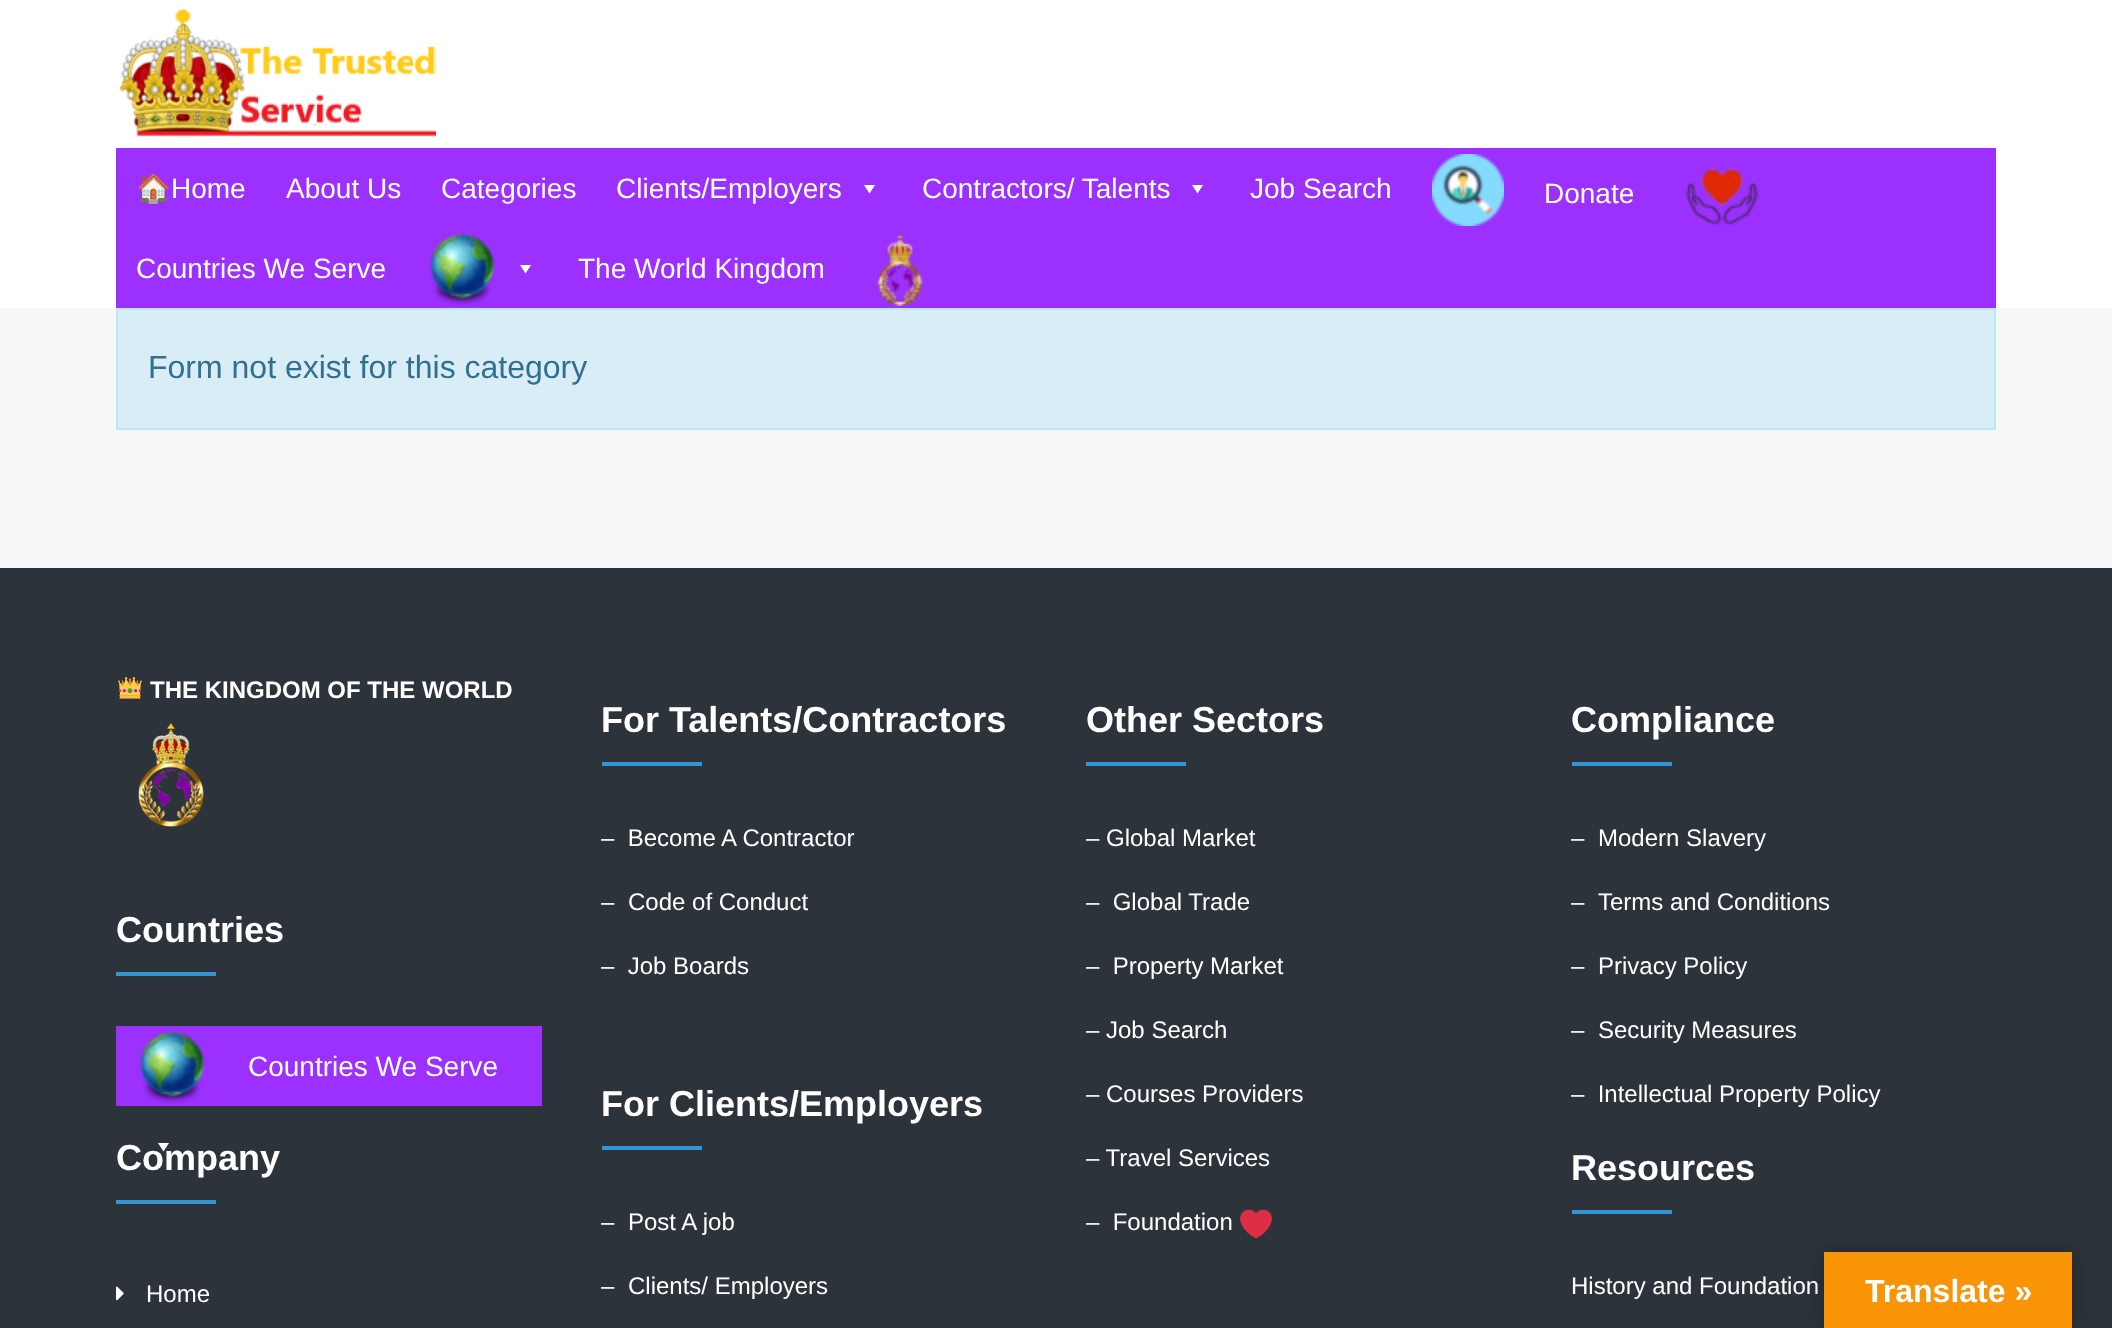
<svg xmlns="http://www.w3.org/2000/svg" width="2112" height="1328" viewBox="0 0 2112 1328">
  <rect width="100%" height="100%" fill="rgb(247,248,250)"/>
  <rect x="0" y="0" width="2112" height="308" fill="rgb(255,255,255)"/>
  <image x="119" y="8" width="317" height="129" href="pic1.png"/>
  <rect x="116" y="148" width="1880" height="160" fill="rgb(155,48,255)"/>
  <text x="136" y="198" font-family="Noto Color Emoji" font-size="28" fill="rgb(255,255,255)">🏠</text>
  <g font-family="Liberation Sans" font-size="28" fill="rgb(255,255,255)">
    <text x="171" y="198">Home</text>
    <text x="286" y="198">About Us</text>
    <text x="441" y="198">Categories</text>
    <text x="616" y="198">Clients/Employers</text>
  </g>
  <path d="M875 185L869.5 193.5L864 185Z" fill="rgb(255,255,255)"/>
  <text x="922" y="198" font-family="Liberation Sans" font-size="28" fill="rgb(255,255,255)">Contractors/ Talents</text>
  <path d="M1203 185L1197.5 193.5L1192 185Z" fill="rgb(255,255,255)"/>
  <text x="1250" y="198" font-family="Liberation Sans" font-size="28" fill="rgb(255,255,255)">Job Search</text>
  <image x="1432" y="154" width="72" height="72" href="pic2.png"/>
  <text x="1544" y="203" font-family="Liberation Sans" font-size="28" fill="rgb(255,255,255)">Donate</text>
  <image x="1685" y="167" width="74" height="58" href="pic3.png"/>
  <text x="136" y="278" font-family="Liberation Sans" font-size="28" fill="rgb(255,255,255)">Countries We Serve</text>
  <image x="429" y="234" width="66" height="72" href="pic4.png"/>
  <path d="M531 265L525.5 273.5L520 265Z" fill="rgb(255,255,255)"/>
  <text x="578" y="278" font-family="Liberation Sans" font-size="28" fill="rgb(255,255,255)">The World Kingdom</text>
  <image x="877" y="234" width="46" height="72" href="pic5.png"/>
  <rect x="117" y="309" width="1878" height="120" fill="rgb(217,237,247)" stroke="rgb(188,232,241)" stroke-width="2"/>
  <text x="148" y="378" font-family="Liberation Sans" font-size="32" fill="rgb(49,112,143)">Form not exist for this category</text>
  <rect x="0" y="568" width="2112" height="760" fill="rgb(45,51,58)"/>
  <image x="118" y="677" width="24" height="22" href="pic6.png"/>
  <text x="150" y="698" font-family="Liberation Sans" font-size="24" font-weight="bold" fill="rgb(255,255,255)">THE KINGDOM OF THE WORLD</text>
  <image x="138" y="723" width="66" height="104" href="pic7.png"/>
  <text x="116" y="942" font-family="Liberation Sans" font-size="36" font-weight="bold" fill="rgb(255,255,255)">Countries</text>
  <rect x="116" y="972" width="100" height="4" fill="rgb(51,150,209)"/>
  <rect x="116" y="1026" width="426" height="80" fill="rgb(155,48,255)"/>
  <image x="139" y="1032" width="66" height="72" href="pic4.png"/>
  <text x="248" y="1076" font-family="Liberation Sans" font-size="28" fill="rgb(255,255,255)">Countries We Serve</text>
  <path d="M169 1143L163.5 1151.5L158 1143Z" fill="rgb(255,255,255)"/>
  <text x="116" y="1170" font-family="Liberation Sans" font-size="36" font-weight="bold" fill="rgb(255,255,255)">Company</text>
  <rect x="116" y="1200" width="100" height="4" fill="rgb(51,150,209)"/>
  <image x="116" y="1286" width="8" height="15" href="pic8.png"/>
  <text x="146" y="1302" font-family="Liberation Sans" font-size="24" fill="rgb(255,255,255)">Home</text>
  <text x="601" y="732" font-family="Liberation Sans" font-size="36" font-weight="bold" fill="rgb(255,255,255)">For Talents/Contractors</text>
  <rect x="602" y="762" width="100" height="4" fill="rgb(51,150,209)"/>
  <g font-family="Liberation Sans" font-size="24" fill="rgb(255,255,255)">
    <text x="601" y="846" xml:space="preserve">–  Become A Contractor</text>
    <text x="601" y="910">–</text>
    <text x="628" y="910">Code of Conduct</text>
    <text x="601" y="974" xml:space="preserve">–  Job Boards</text>
  </g>
  <text x="601" y="1116" font-family="Liberation Sans" font-size="36" font-weight="bold" fill="rgb(255,255,255)">For Clients/Employers</text>
  <rect x="602" y="1146" width="100" height="4" fill="rgb(51,150,209)"/>
  <g font-family="Liberation Sans" font-size="24" fill="rgb(255,255,255)">
    <text x="601" y="1230">–</text>
    <text x="628" y="1230">Post A job</text>
    <text x="601" y="1294">–</text>
    <text x="628" y="1294">Clients/ Employers</text>
  </g>
  <text x="1086" y="732" font-family="Liberation Sans" font-size="36" font-weight="bold" fill="rgb(255,255,255)">Other Sectors</text>
  <rect x="1086" y="762" width="100" height="4" fill="rgb(51,150,209)"/>
  <g font-family="Liberation Sans" font-size="24" fill="rgb(255,255,255)">
    <text x="1086" y="846">– Global Market</text>
    <text x="1086" y="910" xml:space="preserve">–  Global Trade</text>
    <text x="1086" y="974" xml:space="preserve">–  Property Market</text>
    <text x="1086" y="1038">– Job Search</text>
    <text x="1086" y="1102">– Courses Providers</text>
    <text x="1086" y="1166">– Travel Services</text>
    <text x="1086" y="1230" xml:space="preserve">–  Foundation</text>
  </g>
  <image x="1240" y="1209" width="32" height="30" href="pic9.png"/>
  <text x="1571" y="732" font-family="Liberation Sans" font-size="36" font-weight="bold" fill="rgb(255,255,255)">Compliance</text>
  <rect x="1572" y="762" width="100" height="4" fill="rgb(51,150,209)"/>
  <g font-family="Liberation Sans" font-size="24" fill="rgb(255,255,255)">
    <text x="1571" y="846">–</text>
    <text x="1598" y="846">Modern Slavery</text>
    <text x="1571" y="910">–</text>
    <text x="1598" y="910">Terms and Conditions</text>
    <text x="1571" y="974">–</text>
    <text x="1598" y="974">Privacy Policy</text>
    <text x="1571" y="1038">–</text>
    <text x="1598" y="1038">Security Measures</text>
    <text x="1571" y="1102" xml:space="preserve">–  Intellectual Property Policy</text>
  </g>
  <text x="1571" y="1180" font-family="Liberation Sans" font-size="36" font-weight="bold" fill="rgb(255,255,255)">Resources</text>
  <rect x="1572" y="1210" width="100" height="4" fill="rgb(51,150,209)"/>
  <text x="1571" y="1294" font-family="Liberation Sans" font-size="24" fill="rgb(255,255,255)">History and Foundation</text>
  <rect x="1824" y="1252" width="248" height="76" fill="rgba(0,0,0,0.3)" filter="blur(9px)"/>
  <rect x="1824" y="1252" width="248" height="76" fill="rgb(248,148,6)"/>
  <text x="1865" y="1302" font-family="Liberation Sans" font-size="32" font-weight="bold" fill="rgb(255,255,255)">Translate »</text>
</svg>
